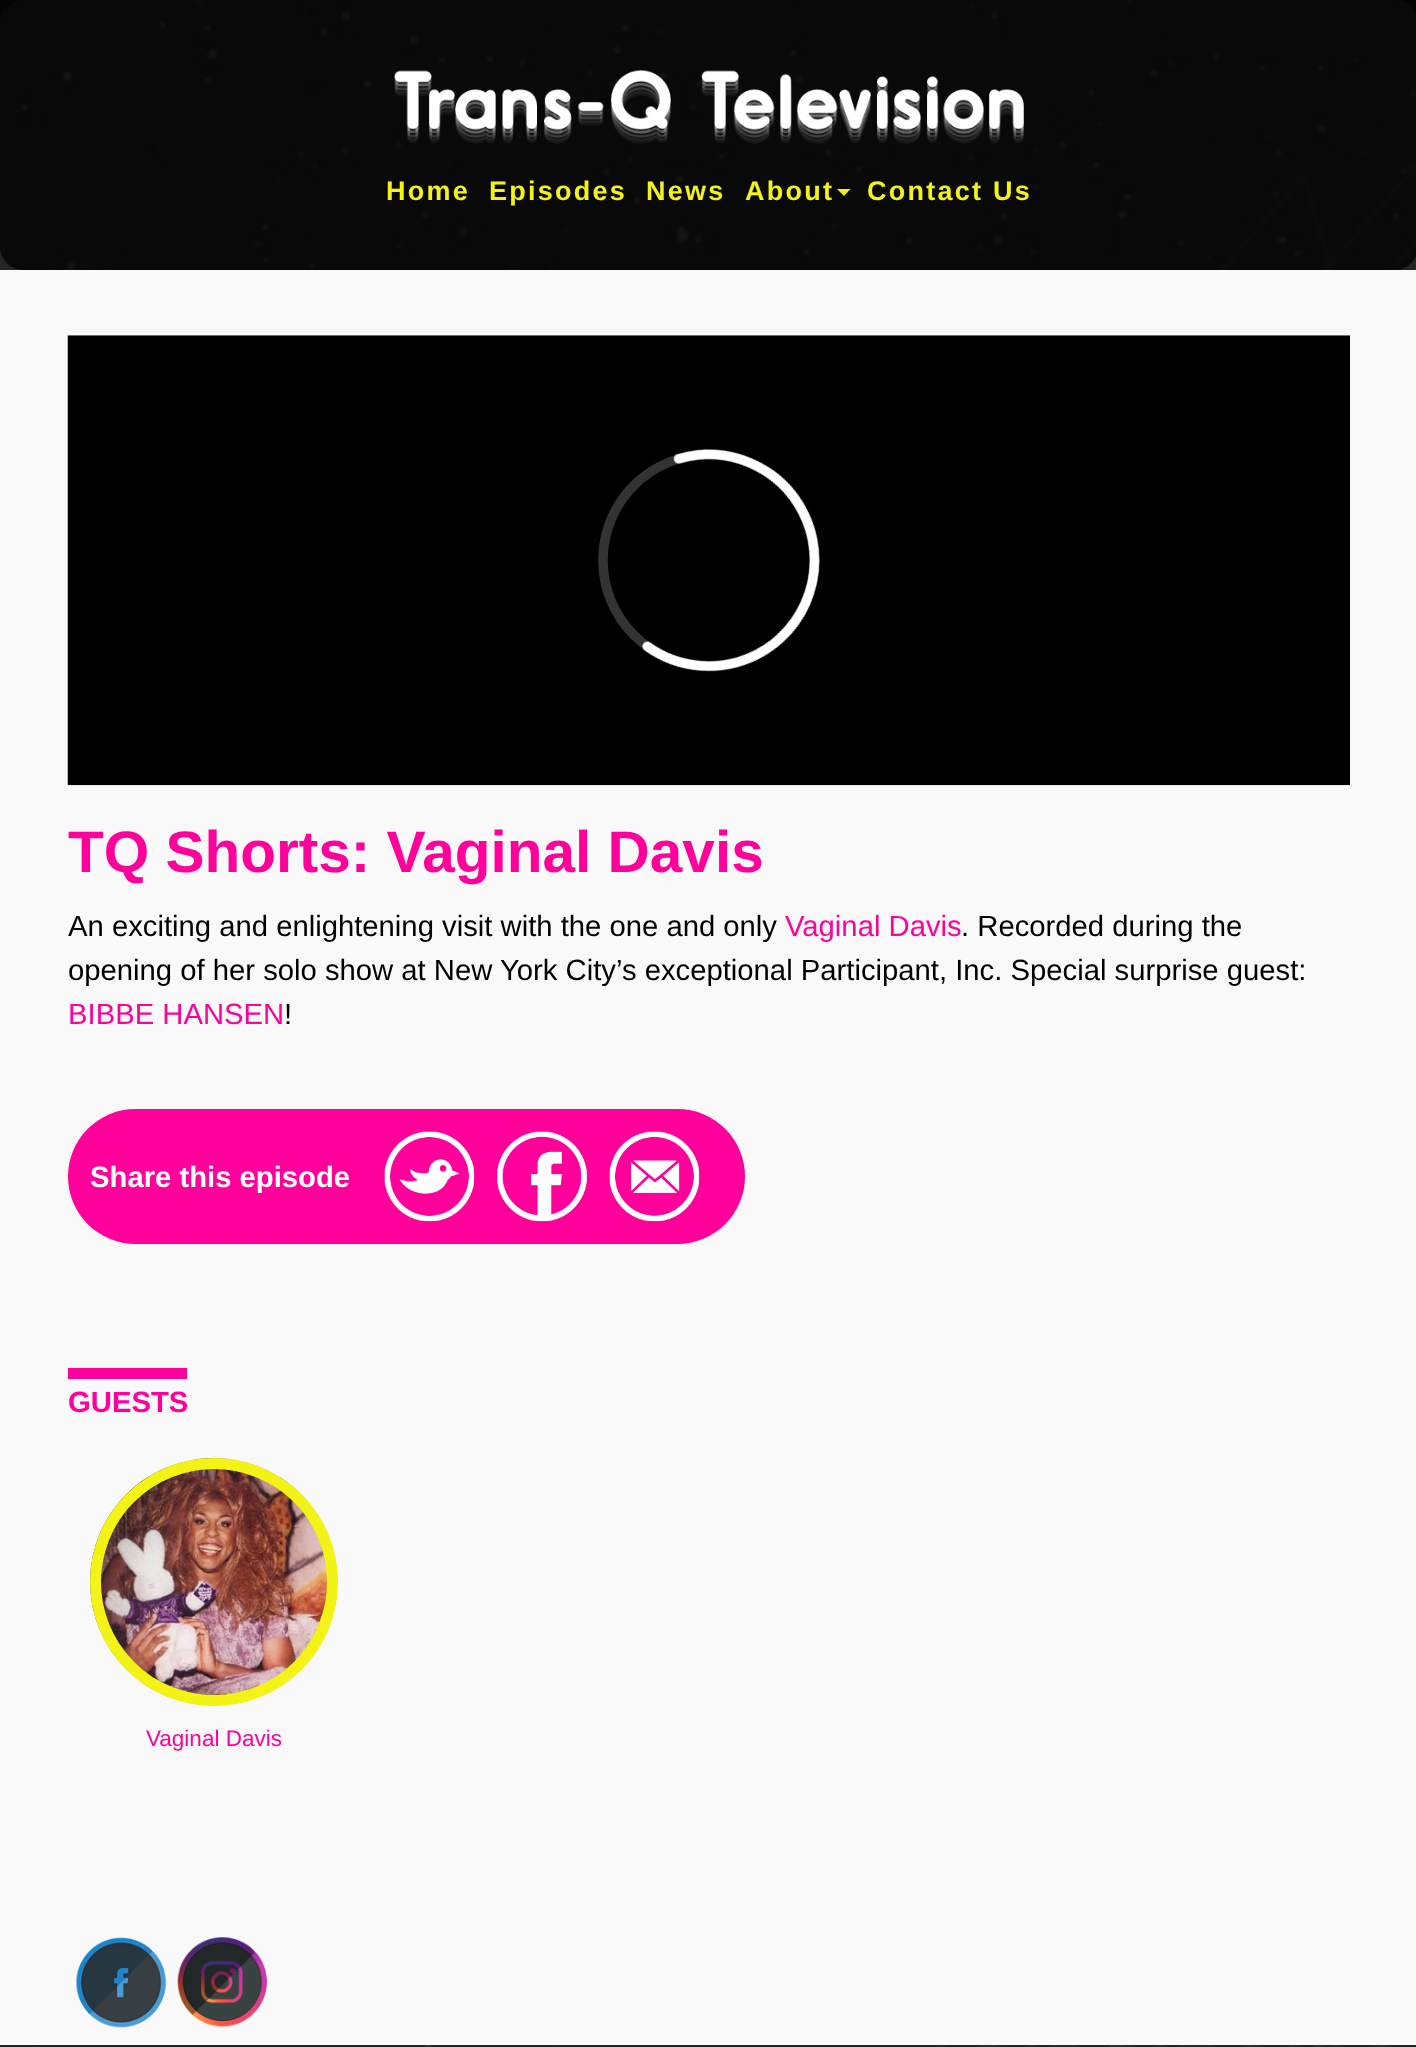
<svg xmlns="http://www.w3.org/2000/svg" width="1416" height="2047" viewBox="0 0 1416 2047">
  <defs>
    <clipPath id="clip1"><path d="M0 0H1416V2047H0ZM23 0H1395C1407.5 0 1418 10.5 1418 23V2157C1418 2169.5 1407.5 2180 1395 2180H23C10.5 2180 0 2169.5 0 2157V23C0 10.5 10.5 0 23 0Z" clip-rule="evenodd"/></clipPath>
  </defs>
  <rect width="100%" height="100%" fill="rgb(255,255,255)"/>
  <image x="0" y="0" width="1416" height="2047" href="pic1.png"/>
  <g clip-path="url(#clip1)">
    <rect x="0" y="-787" width="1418" height="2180" rx="23" fill="rgb(0,0,0)" filter="blur(412px)"/>
  </g>
  <path d="M0 0H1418V247C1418 259.5 1407.5 270 1395 270H23C10.5 270 0 259.5 0 247Z" fill="rgba(0,0,0,0.75)"/>
  <image x="394" y="69" width="630" height="75" href="pic2.png"/>
  <g font-family="Liberation Sans" font-size="27" font-weight="bold" letter-spacing="2.25" fill="rgb(243,243,21)">
    <text x="386" y="200">Home</text>
    <text x="489" y="200">Episodes</text>
    <text x="646" y="200">News</text>
    <text x="745" y="200">About</text>
  </g>
  <path d="M837 189H850.5L844 196Z" fill="rgb(243,243,21)"/>
  <text x="867" y="200" font-family="Liberation Sans" font-size="27" font-weight="bold" letter-spacing="2.25" fill="rgb(243,243,21)">Contact Us</text>
  <rect x="0" y="270" width="1416" height="1775" fill="rgb(249,249,249)"/>
  <image x="67" y="335" width="1283" height="451" href="pic3.png"/>
  <text x="68" y="872" font-family="Liberation Sans" font-size="58.5" font-weight="bold" fill="rgb(255,0,154)">TQ Shorts: Vaginal Davis</text>
  <text x="68" y="936" font-family="Liberation Sans" font-size="29.25" fill="rgb(0,0,0)">An exciting and enlightening visit with the one and only</text>
  <text x="785" y="936" font-family="Liberation Sans" font-size="29.25" fill="rgb(255,0,154)">Vaginal Davis</text>
  <g font-family="Liberation Sans" font-size="29.25" fill="rgb(0,0,0)">
    <text x="961" y="936">. Recorded during the</text>
    <text x="68" y="980">opening of her solo show at New York City’s exceptional Participant, Inc. Special surprise guest:</text>
  </g>
  <text x="68" y="1024" font-family="Liberation Sans" font-size="29.25" fill="rgb(255,0,154)">BIBBE HANSEN</text>
  <text x="284" y="1024" font-family="Liberation Sans" font-size="29.25" fill="rgb(0,0,0)">!</text>
  <rect x="68" y="1109" width="677" height="135" rx="67.5" fill="rgb(255,0,154)"/>
  <text x="90" y="1187" font-family="Liberation Sans" font-size="29.25" font-weight="bold" fill="rgb(255,255,255)">Share this episode</text>
  <image x="384" y="1131" width="91" height="91" href="pic4.png"/>
  <image x="497" y="1131" width="91" height="91" href="pic5.png"/>
  <image x="609" y="1131" width="91" height="91" href="pic6.png"/>
  <rect x="68" y="1368" width="119" height="11" fill="rgb(255,0,154)"/>
  <text x="68" y="1412" font-family="Liberation Sans" font-size="29.25" font-weight="bold" fill="rgb(255,0,154)">GUESTS</text>
  <image x="90" y="1458" width="248" height="248" href="pic7.png"/>
  <circle cx="214" cy="1582" r="118.5" fill="none" stroke="rgb(243,243,21)" stroke-width="11"/>
  <text x="146" y="1746" font-family="Liberation Sans" font-size="22.5" fill="rgb(255,0,154)">Vaginal Davis</text>
  <image x="76" y="1937" width="91" height="91" href="pic8.png"/>
  <image x="177" y="1937" width="90" height="90" href="pic9.png"/>
</svg>
